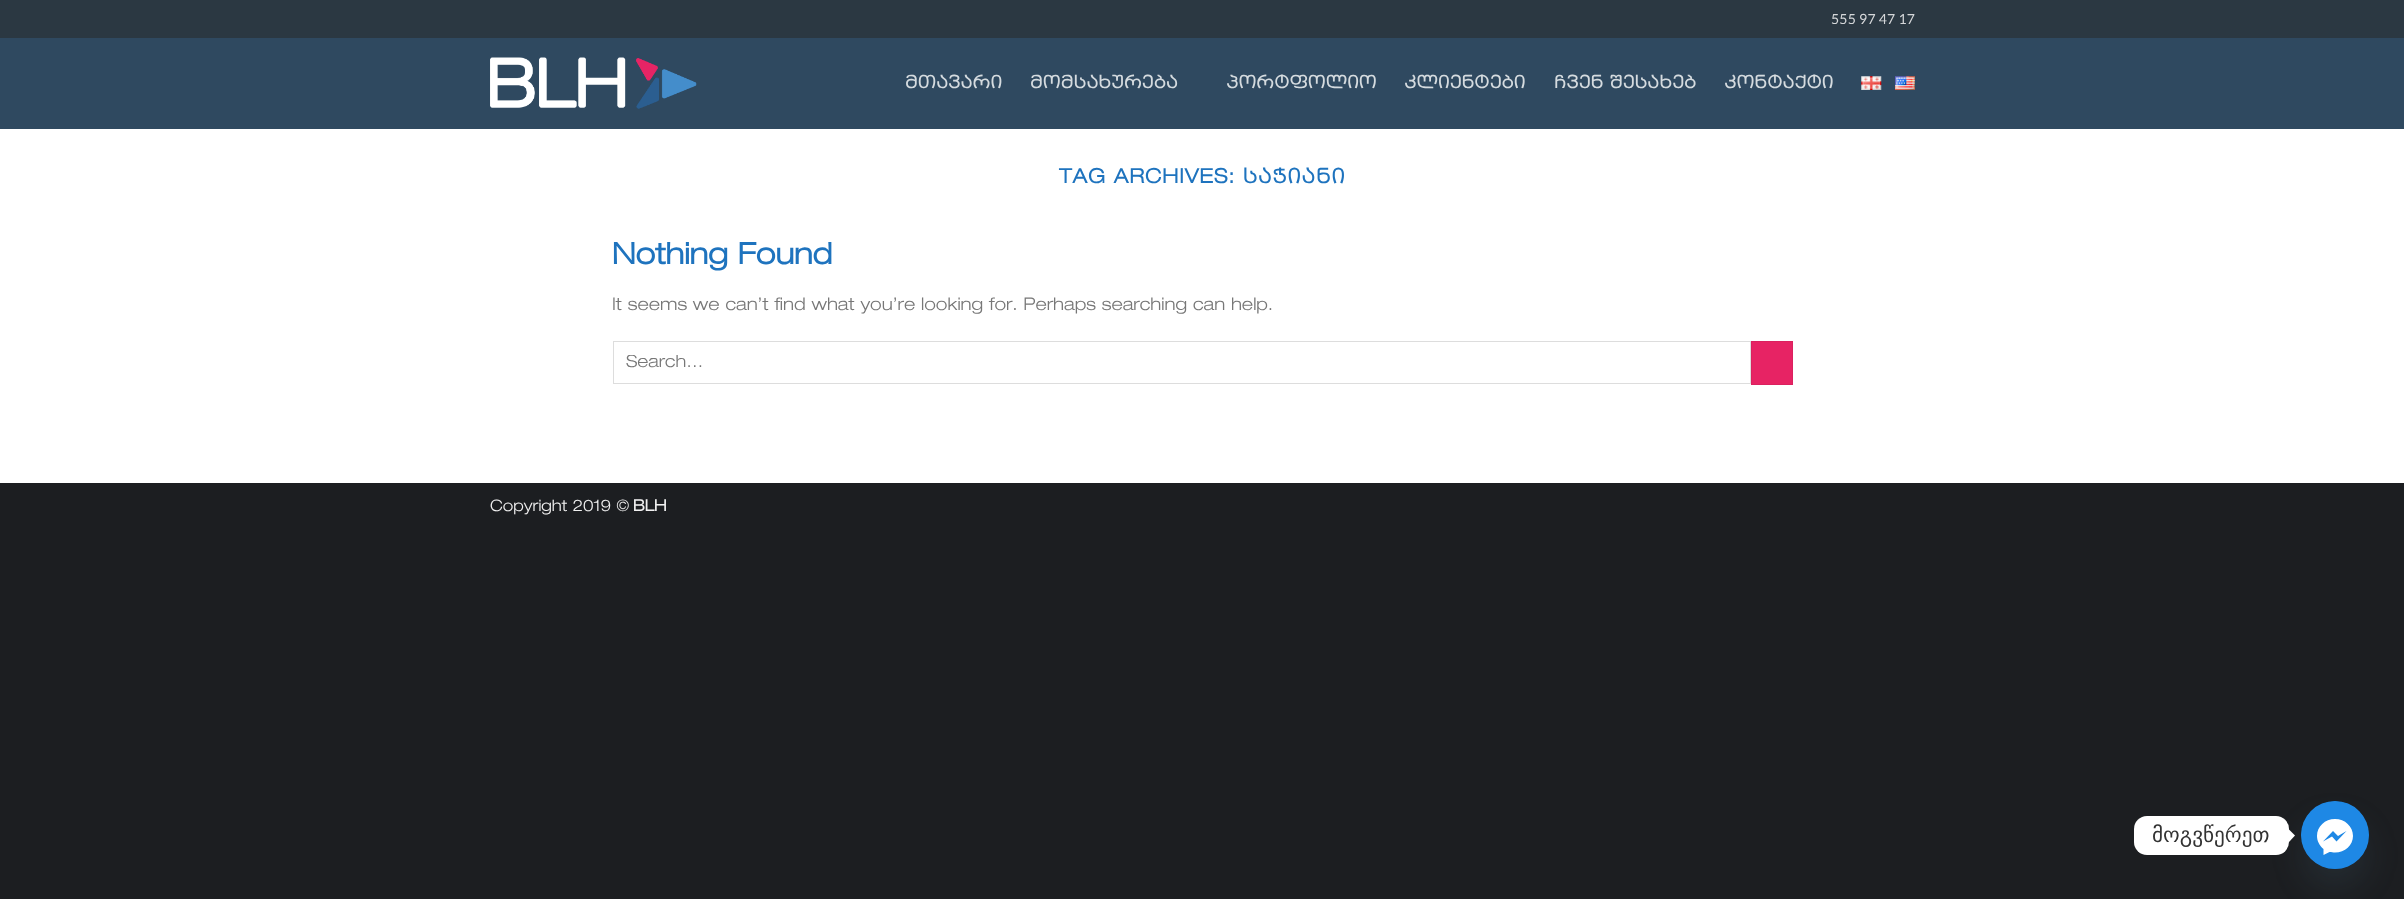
<svg xmlns="http://www.w3.org/2000/svg" width="2404" height="899" viewBox="0 0 2404 899">
  <defs>
    <clipPath id="clip1"><rect x="626" y="355" width="1107" height="16"/></clipPath>
  </defs>
  <rect width="100%" height="100%" fill="rgb(28,30,33)"/>
  <rect x="0" y="129" width="2404" height="354" fill="rgb(255,255,255)"/>
  <rect x="0" y="38" width="2404" height="91" fill="rgb(47,73,96)"/>
  <rect x="0" y="0" width="2404" height="38" fill="rgb(43,56,66)"/>
  <text x="1831" y="24" font-family="Lato" font-size="14" letter-spacing="0.25" fill="rgb(213,215,217)">555 97 47 17</text>
  <image x="490" y="57" width="207" height="52" href="pic1.png"/>
  <g font-family="'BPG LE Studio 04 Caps'" font-size="17.4" font-weight="bold" letter-spacing="0.3" fill="rgb(213,219,223)">
    <text x="905" y="88">მთავარი</text>
    <text x="1030" y="88">მომსახურება</text>
    <text x="1226" y="88">პორტფოლიო</text>
    <text x="1404" y="88">კლიენტები</text>
    <text x="1554" y="88">ჩვენ შესახებ</text>
    <text x="1724" y="88">კონტაქტი</text>
  </g>
  <image x="1861" y="76" width="21" height="14" href="pic2.png"/>
  <image x="1895" y="76" width="20" height="14" href="pic3.png"/>
  <text x="1059" y="183" font-family="'BPG LE Studio 04 Caps'" font-size="20" font-weight="bold" letter-spacing="1" fill="rgb(30,115,190)">TAG ARCHIVES: საჭიანი</text>
  <text x="612" y="264" font-family="'BPG LE Studio 04 Caps'" font-size="29.5" font-weight="bold" fill="rgb(30,115,190)">Nothing Found</text>
  <text x="612" y="310" font-family="'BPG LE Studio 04'" font-size="17.4" font-weight="300" fill="rgb(119,119,119)">It seems we can’t find what you’re looking for. Perhaps searching can help.</text>
  <rect x="613.5" y="341.5" width="1137" height="42" fill="none" stroke="rgb(221,221,221)"/>
  <g clip-path="url(#clip1)">
    <text x="626" y="367" font-family="'BPG LE Studio 04'" font-size="17" font-weight="300" fill="rgb(119,119,119)">Search…</text>
  </g>
  <rect x="1751.5" y="341.5" width="41" height="43" fill="rgb(231,35,100)" stroke="rgb(219,33,95)"/>
  <text x="490" y="511" font-family="'BPG LE Studio 04'" font-size="15.75" font-weight="300" fill="rgb(241,241,241)">Copyright 2019 ©</text>
  <text x="633" y="511" font-family="'BPG LE Studio 04'" font-size="15.75" font-weight="bold" fill="rgb(241,241,241)">BLH</text>
  <rect x="2301" y="821" width="68" height="68" rx="34" fill="rgba(73,104,126,0.16)" filter="blur(15px)"/>
  <rect x="2134" y="816" width="155" height="39" rx="13" fill="rgb(255,255,255)"/>
  <text x="2152" y="842" font-family="DejaVu Sans" font-size="21.25" fill="rgb(51,51,51)">მოგვწერეთ</text>
  <path d="M2289 842V829.5L2295 835.5Z" fill="rgb(255,255,255)"/>
  <circle cx="2335" cy="835" r="34" fill="rgb(30,136,229)"/>
  <circle cx="2335" cy="835" r="33.5" fill="rgb(30,136,229)"/>
  <path d="M2317 836C2317 826.5 2325 819 2335 819C2345 819 2353 826.5 2353 836C2353 845 2345 852.5 2335 852.5C2333 852.5 2331.5 852 2329.5 852L2323.5 855V849C2319.5 845.5 2317 841 2317 836ZM2332 836.5L2336.5 841.5L2346.5 831L2338 836L2333 831L2323 841.5Z" fill="rgb(255,255,255)" fill-rule="evenodd"/>
</svg>
